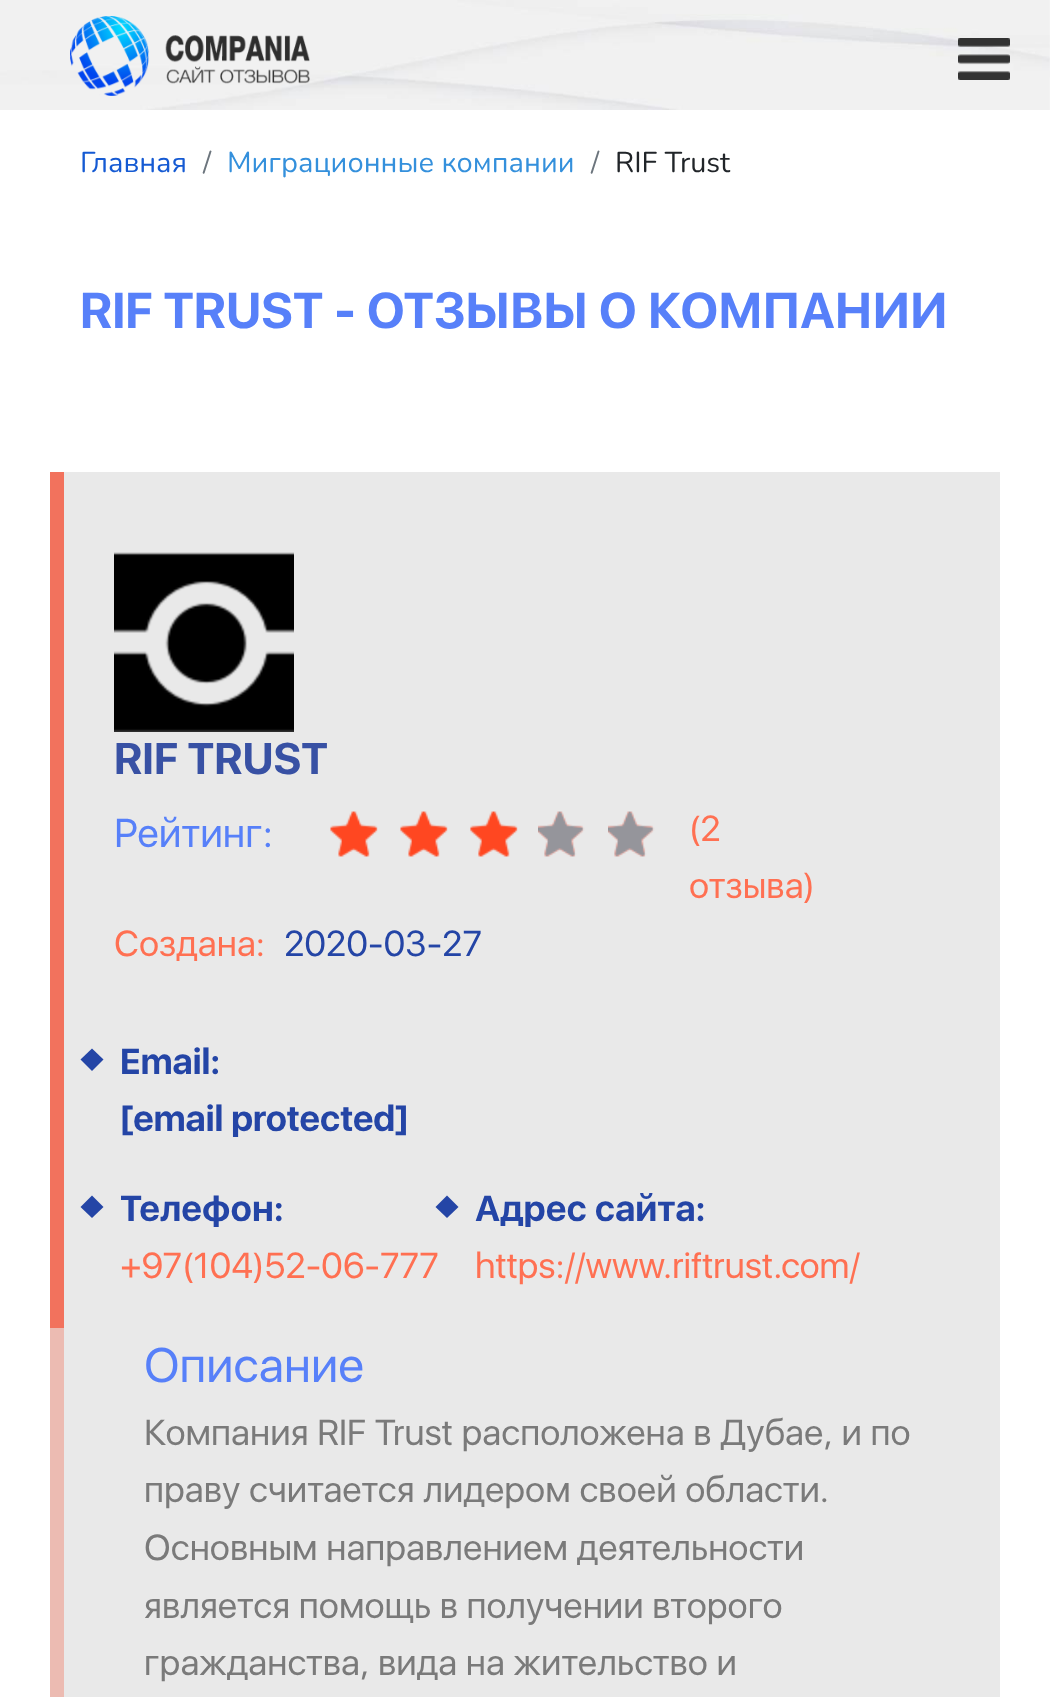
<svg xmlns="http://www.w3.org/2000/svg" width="1050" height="1697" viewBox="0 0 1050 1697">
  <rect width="100%" height="100%" fill="rgb(255,255,255)"/>
  <image x="0" y="0" width="1050" height="110" href="pic1.png"/>
  <image x="70" y="16" width="240" height="80" href="pic2.png"/>
  <image x="958" y="38" width="52" height="42" href="pic3.png"/>
  <text x="80" y="172" font-family="Nunito" font-size="28.75" fill="rgb(21,90,211)">Главная</text>
  <text x="203" y="172" font-family="Nunito" font-size="28.75" fill="rgb(108,117,125)">/</text>
  <text x="227" y="172" font-family="Nunito" font-size="28.75" fill="rgb(52,144,220)">Миграционные компании</text>
  <text x="591" y="172" font-family="Nunito" font-size="28.75" fill="rgb(108,117,125)">/</text>
  <text x="615" y="172" font-family="Nunito" font-size="28.75" fill="rgb(33,37,41)">RIF Trust</text>
  <text x="80" y="328" font-family="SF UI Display" font-size="50" font-weight="bold" fill="rgb(87,128,249)">RIF TRUST - ОТЗЫВЫ О КОМПАНИИ</text>
  <rect x="64" y="472" width="936" height="1225" fill="rgb(233,233,233)"/>
  <rect x="50" y="472" width="14" height="856" fill="rgb(242,114,93)"/>
  <image x="114" y="552" width="180" height="180" href="pic4.png"/>
  <text x="114" y="774" font-family="SF UI Display" font-size="44" font-weight="bold" fill="rgb(56,81,164)">RIF TRUST</text>
  <text x="114" y="847" font-family="SF UI Display" font-size="40" fill="rgb(87,128,249)">Рейтинг:</text>
  <image x="330" y="811" width="48" height="46" href="pic5.png"/>
  <image x="400" y="811" width="48" height="46" href="pic5.png"/>
  <image x="470" y="811" width="48" height="46" href="pic6.png"/>
  <image x="538" y="811" width="47" height="46" href="pic7.png"/>
  <image x="608" y="811" width="47" height="46" href="pic7.png"/>
  <g font-family="SF UI Display" font-size="36" fill="rgb(255,112,82)">
    <text>
      <tspan x="689" y="841">(2</tspan>
      <tspan x="689" y="898">отзыва)</tspan>
    </text>
    <text x="114" y="956">Создана:</text>
  </g>
  <text x="284" y="956" font-family="SF UI Display" font-size="36" fill="rgb(36,69,166)">2020-03-27</text>
  <path d="M92 1048.5L103.5 1059.5L92 1071L80.5 1059.5Z" fill="rgb(36,69,166)"/>
  <g font-family="SF UI Display" font-size="36" font-weight="bold" fill="rgb(36,69,166)">
    <text>
      <tspan x="120" y="1074">Email:</tspan>
      <tspan x="120" y="1131">[email protected]</tspan>
    </text>
  </g>
  <path d="M92 1195.5L103.5 1207L92 1218L80.5 1207Z" fill="rgb(36,69,166)"/>
  <text x="120" y="1221" font-family="SF UI Display" font-size="36" font-weight="bold" fill="rgb(36,69,166)">Телефон:</text>
  <text x="120" y="1278" font-family="SF UI Display" font-size="36" fill="rgb(255,112,82)">+97(104)52-06-777</text>
  <path d="M447 1195.5L458.5 1207L447 1218L435.5 1207Z" fill="rgb(36,69,166)"/>
  <text x="475" y="1221" font-family="SF UI Display" font-size="36" font-weight="bold" fill="rgb(36,69,166)">Адрес сайта:</text>
  <text x="475" y="1278" font-family="SF UI Display" font-size="36" fill="rgb(255,112,82)">https://www.riftrust.com/</text>
  <rect x="50" y="1328" width="14" height="369" fill="rgb(236,187,178)"/>
  <text x="144" y="1382" font-family="SF UI Display" font-size="48" fill="rgb(87,128,249)">Описание</text>
  <g font-family="SF UI Display" font-size="36" fill="rgb(122,122,122)">
    <text>
      <tspan x="144" y="1445">Компания RIF Trust расположена в Дубае, и по</tspan>
      <tspan x="144" y="1502">праву считается лидером своей области.</tspan>
      <tspan x="144" y="1560">Основным направлением деятельности</tspan>
      <tspan x="144" y="1618">является помощь в получении второго</tspan>
      <tspan x="144" y="1675">гражданства, вида на жительство и</tspan>
    </text>
  </g>
</svg>
